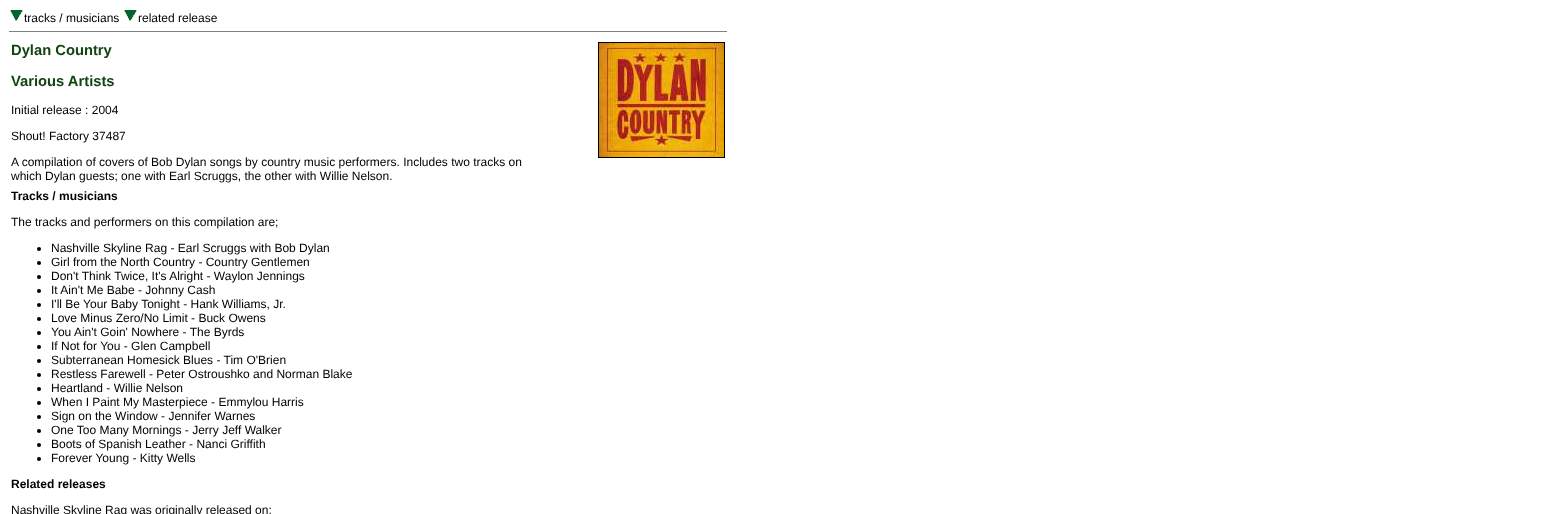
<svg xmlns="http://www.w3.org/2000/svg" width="1545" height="514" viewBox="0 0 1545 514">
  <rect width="100%" height="100%" fill="rgb(255,255,255)"/>
  <image x="10" y="10" width="13" height="11" href="pic1.png"/>
  <text x="24" y="22" font-family="Liberation Sans" font-size="12" fill="rgb(0,0,0)">tracks / musicians</text>
  <image x="124" y="10" width="13" height="11" href="pic1.png"/>
  <text x="138" y="22" font-family="Liberation Sans" font-size="12" fill="rgb(0,0,0)">related release</text>
  <rect x="9" y="31" width="718" height="1" fill="rgb(128,128,128)"/>
  <g font-family="Liberation Sans" font-size="14.75" font-weight="bold" fill="rgb(17,68,17)">
    <text x="11" y="55">Dylan Country</text>
    <text x="11" y="86">Various Artists</text>
  </g>
  <g font-family="Liberation Sans" font-size="12" fill="rgb(0,0,0)">
    <text x="11" y="114">Initial release : 2004</text>
    <text x="11" y="140">Shout! Factory 37487</text>
    <text>
      <tspan x="11" y="166">A compilation of covers of Bob Dylan songs by country music performers. Includes two tracks on</tspan>
      <tspan x="11" y="180">which Dylan guests; one with Earl Scruggs, the other with Willie Nelson.</tspan>
    </text>
  </g>
  <rect x="598.5" y="42.5" width="126" height="115" fill="none" stroke="rgb(0,0,0)"/>
  <image x="599" y="43" width="125" height="114" href="pic2.png"/>
  <text x="11" y="200" font-family="Liberation Sans" font-size="12" font-weight="bold" fill="rgb(0,0,0)">Tracks / musicians</text>
  <text x="11" y="226" font-family="Liberation Sans" font-size="12" fill="rgb(0,0,0)">The tracks and performers on this compilation are;</text>
  <circle cx="39" cy="249" r="2" fill="rgb(0,0,0)"/>
  <text x="51" y="252" font-family="Liberation Sans" font-size="12" fill="rgb(0,0,0)">Nashville Skyline Rag - Earl Scruggs with Bob Dylan</text>
  <circle cx="39" cy="263" r="2" fill="rgb(0,0,0)"/>
  <text x="51" y="266" font-family="Liberation Sans" font-size="12" fill="rgb(0,0,0)">Girl from the North Country - Country Gentlemen</text>
  <circle cx="39" cy="277" r="2" fill="rgb(0,0,0)"/>
  <text x="51" y="280" font-family="Liberation Sans" font-size="12" fill="rgb(0,0,0)">Don't Think Twice, It's Alright - Waylon Jennings</text>
  <circle cx="39" cy="291" r="2" fill="rgb(0,0,0)"/>
  <text x="51" y="294" font-family="Liberation Sans" font-size="12" fill="rgb(0,0,0)">It Ain't Me Babe - Johnny Cash</text>
  <circle cx="39" cy="305" r="2" fill="rgb(0,0,0)"/>
  <text x="51" y="308" font-family="Liberation Sans" font-size="12" fill="rgb(0,0,0)">I'll Be Your Baby Tonight - Hank Williams, Jr.</text>
  <circle cx="39" cy="319" r="2" fill="rgb(0,0,0)"/>
  <text x="51" y="322" font-family="Liberation Sans" font-size="12" fill="rgb(0,0,0)">Love Minus Zero/No Limit - Buck Owens</text>
  <circle cx="39" cy="333" r="2" fill="rgb(0,0,0)"/>
  <text x="51" y="336" font-family="Liberation Sans" font-size="12" fill="rgb(0,0,0)">You Ain't Goin' Nowhere - The Byrds</text>
  <circle cx="39" cy="347" r="2" fill="rgb(0,0,0)"/>
  <text x="51" y="350" font-family="Liberation Sans" font-size="12" fill="rgb(0,0,0)">If Not for You - Glen Campbell</text>
  <circle cx="39" cy="361" r="2" fill="rgb(0,0,0)"/>
  <text x="51" y="364" font-family="Liberation Sans" font-size="12" fill="rgb(0,0,0)">Subterranean Homesick Blues - Tim O'Brien</text>
  <circle cx="39" cy="375" r="2" fill="rgb(0,0,0)"/>
  <text x="51" y="378" font-family="Liberation Sans" font-size="12" fill="rgb(0,0,0)">Restless Farewell - Peter Ostroushko and Norman Blake</text>
  <circle cx="39" cy="389" r="2" fill="rgb(0,0,0)"/>
  <text x="51" y="392" font-family="Liberation Sans" font-size="12" fill="rgb(0,0,0)">Heartland - Willie Nelson</text>
  <circle cx="39" cy="403" r="2" fill="rgb(0,0,0)"/>
  <text x="51" y="406" font-family="Liberation Sans" font-size="12" fill="rgb(0,0,0)">When I Paint My Masterpiece - Emmylou Harris</text>
  <circle cx="39" cy="417" r="2" fill="rgb(0,0,0)"/>
  <text x="51" y="420" font-family="Liberation Sans" font-size="12" fill="rgb(0,0,0)">Sign on the Window - Jennifer Warnes</text>
  <circle cx="39" cy="431" r="2" fill="rgb(0,0,0)"/>
  <text x="51" y="434" font-family="Liberation Sans" font-size="12" fill="rgb(0,0,0)">One Too Many Mornings - Jerry Jeff Walker</text>
  <circle cx="39" cy="445" r="2" fill="rgb(0,0,0)"/>
  <text x="51" y="448" font-family="Liberation Sans" font-size="12" fill="rgb(0,0,0)">Boots of Spanish Leather - Nanci Griffith</text>
  <circle cx="39" cy="459" r="2" fill="rgb(0,0,0)"/>
  <text x="51" y="462" font-family="Liberation Sans" font-size="12" fill="rgb(0,0,0)">Forever Young - Kitty Wells</text>
  <text x="11" y="488" font-family="Liberation Sans" font-size="12" font-weight="bold" fill="rgb(0,0,0)">Related releases</text>
  <text x="11" y="514" font-family="Liberation Sans" font-size="12" fill="rgb(0,0,0)">Nashville Skyline Rag was originally released on;</text>
</svg>
